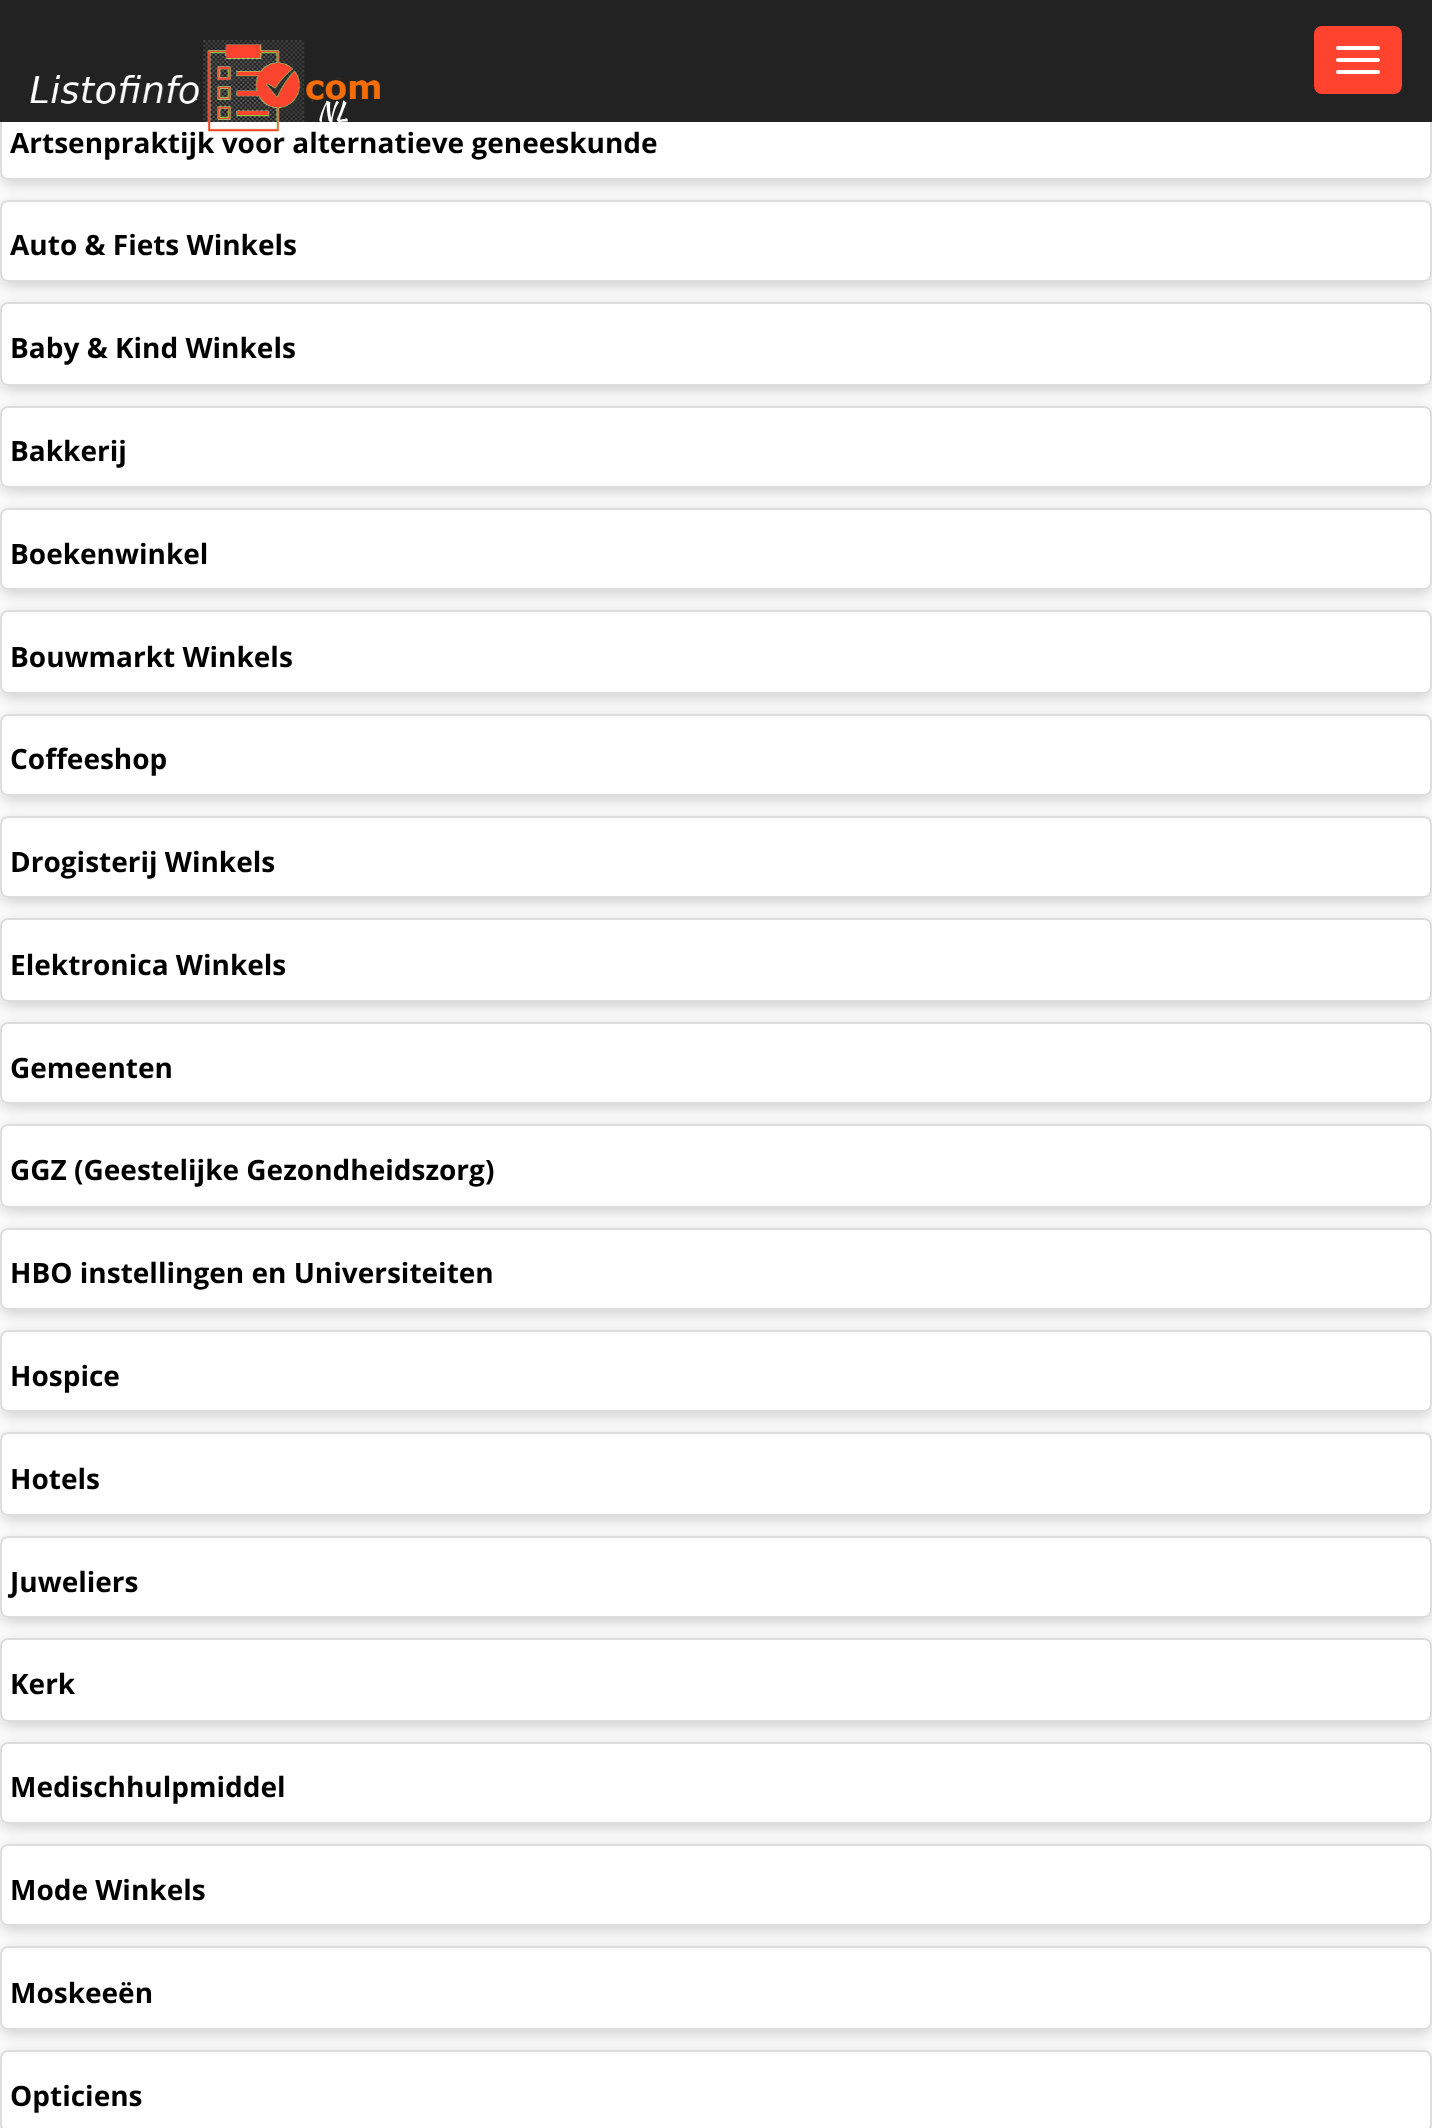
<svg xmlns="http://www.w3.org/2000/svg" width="1432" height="2128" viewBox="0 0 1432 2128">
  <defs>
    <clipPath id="clip1"><path d="M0 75H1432V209H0ZM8 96H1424C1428.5 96 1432 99.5 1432 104V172C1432 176.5 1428.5 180 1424 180H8C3.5 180 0 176.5 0 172V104C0 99.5 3.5 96 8 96Z" clip-rule="evenodd"/></clipPath>
    <clipPath id="clip2"><path d="M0 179H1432V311H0ZM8 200H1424C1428.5 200 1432 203.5 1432 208V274C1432 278.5 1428.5 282 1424 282H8C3.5 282 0 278.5 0 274V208C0 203.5 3.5 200 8 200Z" clip-rule="evenodd"/></clipPath>
    <clipPath id="clip3"><path d="M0 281H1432V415H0ZM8 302H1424C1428.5 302 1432 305.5 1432 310V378C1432 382.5 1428.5 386 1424 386H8C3.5 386 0 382.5 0 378V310C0 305.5 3.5 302 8 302Z" clip-rule="evenodd"/></clipPath>
    <clipPath id="clip4"><path d="M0 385H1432V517H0ZM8 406H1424C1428.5 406 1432 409.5 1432 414V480C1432 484.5 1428.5 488 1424 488H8C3.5 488 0 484.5 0 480V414C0 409.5 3.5 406 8 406Z" clip-rule="evenodd"/></clipPath>
    <clipPath id="clip5"><path d="M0 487H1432V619H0ZM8 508H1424C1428.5 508 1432 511.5 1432 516V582C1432 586.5 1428.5 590 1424 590H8C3.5 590 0 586.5 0 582V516C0 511.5 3.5 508 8 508Z" clip-rule="evenodd"/></clipPath>
    <clipPath id="clip6"><path d="M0 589H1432V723H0ZM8 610H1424C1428.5 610 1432 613.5 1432 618V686C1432 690.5 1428.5 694 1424 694H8C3.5 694 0 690.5 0 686V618C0 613.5 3.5 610 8 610Z" clip-rule="evenodd"/></clipPath>
    <clipPath id="clip7"><path d="M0 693H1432V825H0ZM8 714H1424C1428.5 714 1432 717.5 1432 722V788C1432 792.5 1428.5 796 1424 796H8C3.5 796 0 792.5 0 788V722C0 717.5 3.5 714 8 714Z" clip-rule="evenodd"/></clipPath>
    <clipPath id="clip8"><path d="M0 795H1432V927H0ZM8 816H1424C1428.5 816 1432 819.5 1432 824V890C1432 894.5 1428.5 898 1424 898H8C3.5 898 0 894.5 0 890V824C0 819.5 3.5 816 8 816Z" clip-rule="evenodd"/></clipPath>
    <clipPath id="clip9"><path d="M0 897H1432V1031H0ZM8 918H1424C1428.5 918 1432 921.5 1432 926V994C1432 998.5 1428.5 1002 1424 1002H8C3.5 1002 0 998.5 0 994V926C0 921.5 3.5 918 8 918Z" clip-rule="evenodd"/></clipPath>
    <clipPath id="clip10"><path d="M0 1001H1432V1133H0ZM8 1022H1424C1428.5 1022 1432 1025.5 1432 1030V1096C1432 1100.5 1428.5 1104 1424 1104H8C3.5 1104 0 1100.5 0 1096V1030C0 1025.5 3.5 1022 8 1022Z" clip-rule="evenodd"/></clipPath>
    <clipPath id="clip11"><path d="M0 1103H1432V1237H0ZM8 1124H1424C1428.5 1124 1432 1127.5 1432 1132V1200C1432 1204.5 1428.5 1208 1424 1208H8C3.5 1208 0 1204.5 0 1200V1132C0 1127.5 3.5 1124 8 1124Z" clip-rule="evenodd"/></clipPath>
    <clipPath id="clip12"><path d="M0 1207H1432V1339H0ZM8 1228H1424C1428.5 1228 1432 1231.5 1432 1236V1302C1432 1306.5 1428.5 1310 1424 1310H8C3.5 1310 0 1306.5 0 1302V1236C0 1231.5 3.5 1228 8 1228Z" clip-rule="evenodd"/></clipPath>
    <clipPath id="clip13"><path d="M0 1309H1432V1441H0ZM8 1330H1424C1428.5 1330 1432 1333.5 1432 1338V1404C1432 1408.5 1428.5 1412 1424 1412H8C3.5 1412 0 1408.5 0 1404V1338C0 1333.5 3.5 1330 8 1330Z" clip-rule="evenodd"/></clipPath>
    <clipPath id="clip14"><path d="M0 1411H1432V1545H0ZM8 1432H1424C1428.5 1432 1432 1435.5 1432 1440V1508C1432 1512.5 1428.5 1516 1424 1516H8C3.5 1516 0 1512.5 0 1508V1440C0 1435.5 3.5 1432 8 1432Z" clip-rule="evenodd"/></clipPath>
    <clipPath id="clip15"><path d="M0 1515H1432V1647H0ZM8 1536H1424C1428.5 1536 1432 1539.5 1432 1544V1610C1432 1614.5 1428.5 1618 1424 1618H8C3.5 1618 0 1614.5 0 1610V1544C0 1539.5 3.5 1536 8 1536Z" clip-rule="evenodd"/></clipPath>
    <clipPath id="clip16"><path d="M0 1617H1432V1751H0ZM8 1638H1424C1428.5 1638 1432 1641.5 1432 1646V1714C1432 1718.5 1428.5 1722 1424 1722H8C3.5 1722 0 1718.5 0 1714V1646C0 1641.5 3.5 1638 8 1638Z" clip-rule="evenodd"/></clipPath>
    <clipPath id="clip17"><path d="M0 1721H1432V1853H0ZM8 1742H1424C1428.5 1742 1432 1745.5 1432 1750V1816C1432 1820.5 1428.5 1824 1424 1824H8C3.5 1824 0 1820.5 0 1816V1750C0 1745.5 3.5 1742 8 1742Z" clip-rule="evenodd"/></clipPath>
    <clipPath id="clip18"><path d="M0 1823H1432V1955H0ZM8 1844H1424C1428.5 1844 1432 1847.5 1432 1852V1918C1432 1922.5 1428.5 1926 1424 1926H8C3.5 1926 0 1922.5 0 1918V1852C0 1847.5 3.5 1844 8 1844Z" clip-rule="evenodd"/></clipPath>
    <clipPath id="clip19"><path d="M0 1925H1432V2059H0ZM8 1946H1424C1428.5 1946 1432 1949.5 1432 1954V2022C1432 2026.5 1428.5 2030 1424 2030H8C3.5 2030 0 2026.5 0 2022V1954C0 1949.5 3.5 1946 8 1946Z" clip-rule="evenodd"/></clipPath>
    <clipPath id="clip20"><path d="M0 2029H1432V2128H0ZM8 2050H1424C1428.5 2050 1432 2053.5 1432 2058V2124C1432 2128.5 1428.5 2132 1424 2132H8C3.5 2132 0 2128.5 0 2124V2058C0 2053.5 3.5 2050 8 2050Z" clip-rule="evenodd"/></clipPath>
  </defs>
  <rect width="100%" height="100%" fill="rgb(255,255,255)"/>
  <g clip-path="url(#clip1)">
    <rect x="0" y="100" width="1432" height="84" rx="8" fill="rgba(0,0,0,0.2)" filter="blur(8px)"/>
  </g>
  <rect x="1" y="97" width="1430" height="82" rx="7" fill="none" stroke="rgb(221,221,221)" stroke-width="2"/>
  <rect x="0" y="0" width="1432" height="122" fill="rgb(34,34,34)"/>
  <rect x="1315" y="27" width="86" height="66" rx="7" fill="rgb(255,67,46)" stroke="rgb(255,67,46)" stroke-width="2"/>
  <rect x="1336" y="46" width="44" height="4" rx="2" fill="rgb(255,255,255)"/>
  <rect x="1336" y="58" width="44" height="4" rx="2" fill="rgb(255,255,255)"/>
  <rect x="1336" y="70" width="44" height="4" rx="2" fill="rgb(255,255,255)"/>
  <text x="10" y="153" font-family="Open Sans" font-size="28" font-weight="bold" fill="rgb(0,0,0)">Artsenpraktijk voor alternatieve geneeskunde</text>
  <image x="30" y="40" width="350" height="100" href="pic1.png"/>
  <text x="317" y="120" font-family="Kaushan Script" font-size="26" fill="rgb(255,255,255)">NL</text>
  <g clip-path="url(#clip2)">
    <rect x="0" y="204" width="1432" height="82" rx="8" fill="rgba(0,0,0,0.2)" filter="blur(8px)"/>
  </g>
  <rect x="1" y="201" width="1430" height="80" rx="7" fill="none" stroke="rgb(221,221,221)" stroke-width="2"/>
  <text x="10" y="255" font-family="Open Sans" font-size="28" font-weight="bold" fill="rgb(0,0,0)">Auto &amp; Fiets Winkels</text>
  <g clip-path="url(#clip3)">
    <rect x="0" y="306" width="1432" height="84" rx="8" fill="rgba(0,0,0,0.2)" filter="blur(8px)"/>
  </g>
  <rect x="1" y="303" width="1430" height="82" rx="7" fill="none" stroke="rgb(221,221,221)" stroke-width="2"/>
  <text x="10" y="358" font-family="Open Sans" font-size="28" font-weight="bold" fill="rgb(0,0,0)">Baby &amp; Kind Winkels</text>
  <g clip-path="url(#clip4)">
    <rect x="0" y="410" width="1432" height="82" rx="8" fill="rgba(0,0,0,0.2)" filter="blur(8px)"/>
  </g>
  <rect x="1" y="407" width="1430" height="80" rx="7" fill="none" stroke="rgb(221,221,221)" stroke-width="2"/>
  <text x="10" y="461" font-family="Open Sans" font-size="28" font-weight="bold" fill="rgb(0,0,0)">Bakkerij</text>
  <g clip-path="url(#clip5)">
    <rect x="0" y="512" width="1432" height="82" rx="8" fill="rgba(0,0,0,0.2)" filter="blur(8px)"/>
  </g>
  <rect x="1" y="509" width="1430" height="80" rx="7" fill="none" stroke="rgb(221,221,221)" stroke-width="2"/>
  <text x="10" y="564" font-family="Open Sans" font-size="28" font-weight="bold" fill="rgb(0,0,0)">Boekenwinkel</text>
  <g clip-path="url(#clip6)">
    <rect x="0" y="614" width="1432" height="84" rx="8" fill="rgba(0,0,0,0.2)" filter="blur(8px)"/>
  </g>
  <rect x="1" y="611" width="1430" height="82" rx="7" fill="none" stroke="rgb(221,221,221)" stroke-width="2"/>
  <text x="10" y="667" font-family="Open Sans" font-size="28" font-weight="bold" fill="rgb(0,0,0)">Bouwmarkt Winkels</text>
  <g clip-path="url(#clip7)">
    <rect x="0" y="718" width="1432" height="82" rx="8" fill="rgba(0,0,0,0.2)" filter="blur(8px)"/>
  </g>
  <rect x="1" y="715" width="1430" height="80" rx="7" fill="none" stroke="rgb(221,221,221)" stroke-width="2"/>
  <text x="10" y="769" font-family="Open Sans" font-size="28" font-weight="bold" fill="rgb(0,0,0)">Coffeeshop</text>
  <g clip-path="url(#clip8)">
    <rect x="0" y="820" width="1432" height="82" rx="8" fill="rgba(0,0,0,0.2)" filter="blur(8px)"/>
  </g>
  <rect x="1" y="817" width="1430" height="80" rx="7" fill="none" stroke="rgb(221,221,221)" stroke-width="2"/>
  <text x="10" y="872" font-family="Open Sans" font-size="28" font-weight="bold" fill="rgb(0,0,0)">Drogisterij Winkels</text>
  <g clip-path="url(#clip9)">
    <rect x="0" y="922" width="1432" height="84" rx="8" fill="rgba(0,0,0,0.2)" filter="blur(8px)"/>
  </g>
  <rect x="1" y="919" width="1430" height="82" rx="7" fill="none" stroke="rgb(221,221,221)" stroke-width="2"/>
  <text x="10" y="975" font-family="Open Sans" font-size="28" font-weight="bold" fill="rgb(0,0,0)">Elektronica Winkels</text>
  <g clip-path="url(#clip10)">
    <rect x="0" y="1026" width="1432" height="82" rx="8" fill="rgba(0,0,0,0.2)" filter="blur(8px)"/>
  </g>
  <rect x="1" y="1023" width="1430" height="80" rx="7" fill="none" stroke="rgb(221,221,221)" stroke-width="2"/>
  <text x="10" y="1078" font-family="Open Sans" font-size="28" font-weight="bold" fill="rgb(0,0,0)">Gemeenten</text>
  <g clip-path="url(#clip11)">
    <rect x="0" y="1128" width="1432" height="84" rx="8" fill="rgba(0,0,0,0.2)" filter="blur(8px)"/>
  </g>
  <rect x="1" y="1125" width="1430" height="82" rx="7" fill="none" stroke="rgb(221,221,221)" stroke-width="2"/>
  <text x="10" y="1180" font-family="Open Sans" font-size="28" font-weight="bold" fill="rgb(0,0,0)">GGZ (Geestelijke Gezondheidszorg)</text>
  <g clip-path="url(#clip12)">
    <rect x="0" y="1232" width="1432" height="82" rx="8" fill="rgba(0,0,0,0.2)" filter="blur(8px)"/>
  </g>
  <rect x="1" y="1229" width="1430" height="80" rx="7" fill="none" stroke="rgb(221,221,221)" stroke-width="2"/>
  <text x="10" y="1283" font-family="Open Sans" font-size="28" font-weight="bold" fill="rgb(0,0,0)">HBO instellingen en Universiteiten</text>
  <g clip-path="url(#clip13)">
    <rect x="0" y="1334" width="1432" height="82" rx="8" fill="rgba(0,0,0,0.2)" filter="blur(8px)"/>
  </g>
  <rect x="1" y="1331" width="1430" height="80" rx="7" fill="none" stroke="rgb(221,221,221)" stroke-width="2"/>
  <text x="10" y="1386" font-family="Open Sans" font-size="28" font-weight="bold" fill="rgb(0,0,0)">Hospice</text>
  <g clip-path="url(#clip14)">
    <rect x="0" y="1436" width="1432" height="84" rx="8" fill="rgba(0,0,0,0.2)" filter="blur(8px)"/>
  </g>
  <rect x="1" y="1433" width="1430" height="82" rx="7" fill="none" stroke="rgb(221,221,221)" stroke-width="2"/>
  <text x="10" y="1489" font-family="Open Sans" font-size="28" font-weight="bold" fill="rgb(0,0,0)">Hotels</text>
  <g clip-path="url(#clip15)">
    <rect x="0" y="1540" width="1432" height="82" rx="8" fill="rgba(0,0,0,0.2)" filter="blur(8px)"/>
  </g>
  <rect x="1" y="1537" width="1430" height="80" rx="7" fill="none" stroke="rgb(221,221,221)" stroke-width="2"/>
  <text x="10" y="1592" font-family="Open Sans" font-size="28" font-weight="bold" fill="rgb(0,0,0)">Juweliers</text>
  <g clip-path="url(#clip16)">
    <rect x="0" y="1642" width="1432" height="84" rx="8" fill="rgba(0,0,0,0.2)" filter="blur(8px)"/>
  </g>
  <rect x="1" y="1639" width="1430" height="82" rx="7" fill="none" stroke="rgb(221,221,221)" stroke-width="2"/>
  <text x="10" y="1694" font-family="Open Sans" font-size="28" font-weight="bold" fill="rgb(0,0,0)">Kerk</text>
  <g clip-path="url(#clip17)">
    <rect x="0" y="1746" width="1432" height="82" rx="8" fill="rgba(0,0,0,0.2)" filter="blur(8px)"/>
  </g>
  <rect x="1" y="1743" width="1430" height="80" rx="7" fill="none" stroke="rgb(221,221,221)" stroke-width="2"/>
  <text x="10" y="1797" font-family="Open Sans" font-size="28" font-weight="bold" fill="rgb(0,0,0)">Medischhulpmiddel</text>
  <g clip-path="url(#clip18)">
    <rect x="0" y="1848" width="1432" height="82" rx="8" fill="rgba(0,0,0,0.2)" filter="blur(8px)"/>
  </g>
  <rect x="1" y="1845" width="1430" height="80" rx="7" fill="none" stroke="rgb(221,221,221)" stroke-width="2"/>
  <text x="10" y="1900" font-family="Open Sans" font-size="28" font-weight="bold" fill="rgb(0,0,0)">Mode Winkels</text>
  <g clip-path="url(#clip19)">
    <rect x="0" y="1950" width="1432" height="84" rx="8" fill="rgba(0,0,0,0.2)" filter="blur(8px)"/>
  </g>
  <rect x="1" y="1947" width="1430" height="82" rx="7" fill="none" stroke="rgb(221,221,221)" stroke-width="2"/>
  <text x="10" y="2003" font-family="Open Sans" font-size="28" font-weight="bold" fill="rgb(0,0,0)">Moskeeën</text>
  <g clip-path="url(#clip20)">
    <rect x="0" y="2054" width="1432" height="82" rx="8" fill="rgba(0,0,0,0.2)" filter="blur(8px)"/>
  </g>
  <rect x="1" y="2051" width="1430" height="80" rx="7" fill="none" stroke="rgb(221,221,221)" stroke-width="2"/>
  <text x="10" y="2106" font-family="Open Sans" font-size="28" font-weight="bold" fill="rgb(0,0,0)">Opticiens</text>
</svg>
